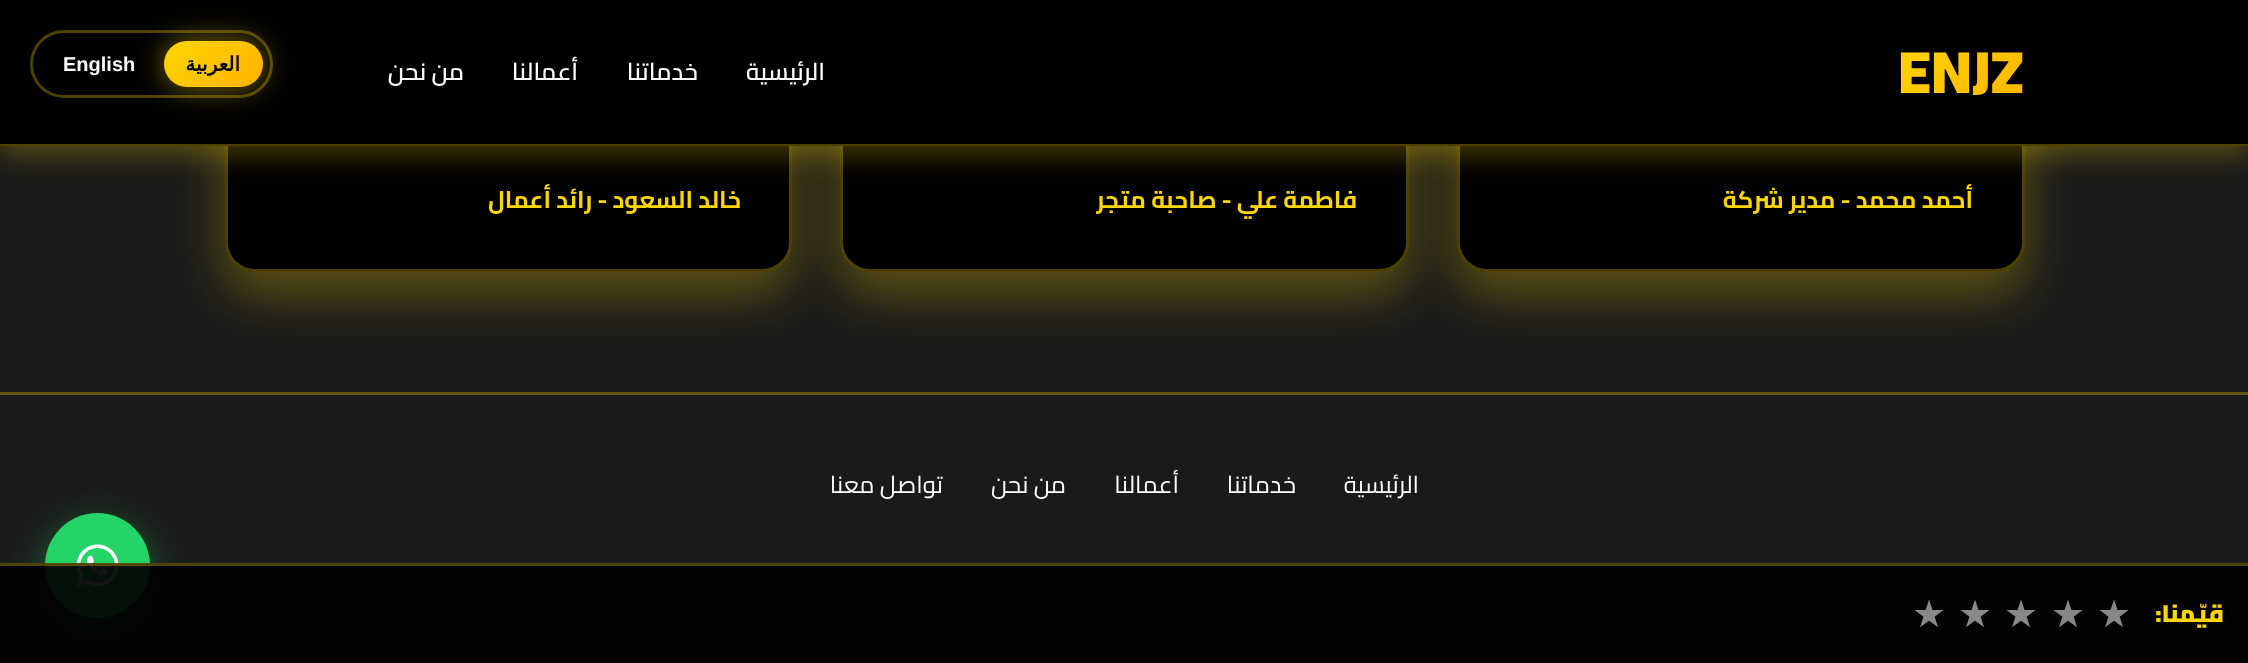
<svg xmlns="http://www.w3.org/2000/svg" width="2248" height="663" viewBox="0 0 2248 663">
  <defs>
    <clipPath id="clip1"><path d="M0 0H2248V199H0ZM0 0H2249V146H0Z" clip-rule="evenodd"/></clipPath>
    <linearGradient id="g1" gradientUnits="userSpaceOnUse" x1="1906" y1="17" x2="2017" y2="127"><stop offset="0" stop-color="rgb(255,215,0)"/><stop offset="1" stop-color="rgb(255,179,0)"/></linearGradient>
    <linearGradient id="g2" gradientUnits="userSpaceOnUse" x1="177" y1="27" x2="249" y2="100"><stop offset="0" stop-color="rgb(255,215,0)"/><stop offset="1" stop-color="rgb(255,179,0)"/></linearGradient>
  </defs>
  <rect width="100%" height="100%" fill="rgb(26,26,26)"/>
  <rect x="1457" y="-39" width="568" height="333" rx="30" fill="rgba(255,215,0,0.3)" filter="blur(26px)"/>
  <rect x="1457" y="-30" width="568" height="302" rx="30" fill="rgb(0,0,0)"/>
  <rect x="1458.5" y="-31.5" width="565" height="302" rx="28.5" fill="none" stroke="rgba(255,215,0,0.3)" stroke-width="3"/>
  <rect x="840" y="-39" width="569" height="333" rx="30" fill="rgba(255,215,0,0.3)" filter="blur(26px)"/>
  <rect x="840" y="-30" width="569" height="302" rx="30" fill="rgb(0,0,0)"/>
  <rect x="841.5" y="-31.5" width="566" height="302" rx="28.5" fill="none" stroke="rgba(255,215,0,0.3)" stroke-width="3"/>
  <rect x="225" y="-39" width="567" height="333" rx="30" fill="rgba(255,215,0,0.3)" filter="blur(26px)"/>
  <rect x="225" y="-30" width="567" height="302" rx="30" fill="rgb(0,0,0)"/>
  <rect x="226.5" y="-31.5" width="564" height="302" rx="28.5" fill="none" stroke="rgba(255,215,0,0.3)" stroke-width="3"/>
  <g clip-path="url(#clip1)">
    <rect x="0" y="8" width="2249" height="145" fill="rgba(255,215,0,0.3)" filter="blur(15px)"/>
  </g>
  <rect x="0" y="0" width="2248" height="146" fill="rgba(0,0,0,0.98)"/>
  <rect x="0" y="144" width="2248" height="2" fill="rgba(255,215,0,0.3)"/>
  <text x="1898" y="93" font-family="Cairo" font-size="60" font-weight="900" fill="url(#g1)">ENJZ</text>
  <g font-family="Cairo" font-size="24" font-weight="600" direction="rtl" fill="rgb(255,255,255)">
    <text x="825" y="80">الرئيسية</text>
    <text x="698" y="80">خدماتنا</text>
    <text x="578" y="80">أعمالنا</text>
    <text x="464" y="80">من نحن</text>
  </g>
  <rect x="31.5" y="31.5" width="240" height="65" rx="32.5" fill="none" stroke="rgba(255,215,0,0.3)" stroke-width="3"/>
  <rect x="164" y="41" width="99" height="46" rx="23" fill="rgba(255,215,0,0.5)" filter="blur(15px)"/>
  <rect x="164" y="41" width="99" height="46" rx="23" fill="url(#g2)"/>
  <text x="240" y="71" font-family="DejaVu Sans" font-size="20" font-weight="bold" direction="rtl" fill="rgb(0,0,0)">العربية</text>
  <text x="63" y="71" font-family="Liberation Sans" font-size="20" font-weight="bold" fill="rgb(255,255,255)">English</text>
  <g font-family="Cairo" font-size="24" font-weight="bold" direction="rtl" fill="rgb(255,215,0)">
    <text x="1973" y="208">أحمد محمد - مدير شركة</text>
    <text x="1357" y="208">فاطمة علي - صاحبة متجر</text>
    <text x="741" y="208">خالد السعود - رائد أعمال</text>
  </g>
  <rect x="0" y="392" width="2248" height="3" fill="rgb(95,83,18)"/>
  <g font-family="Cairo" font-size="24" direction="rtl" fill="rgb(255,255,255)">
    <text x="1419" y="493">الرئيسية</text>
    <text x="1296" y="493">خدماتنا</text>
    <text x="1179" y="493">أعمالنا</text>
    <text x="1066" y="493">من نحن</text>
    <text x="943" y="493">تواصل معنا</text>
  </g>
  <rect x="45" y="528" width="105" height="105" rx="52.5" fill="rgba(37,211,102,0.5)" filter="blur(22.5px)"/>
  <circle cx="97.5" cy="565.5" r="52.5" fill="rgb(37,211,102)"/>
  <image x="76" y="544" width="43" height="43" href="pic1.png"/>
  <rect x="0" y="563" width="2248" height="100" fill="rgba(0,0,0,0.92)"/>
  <rect x="0" y="563" width="2248" height="3" fill="rgba(255,215,0,0.3)"/>
  <text x="2224" y="622" font-family="Cairo" font-size="24" font-weight="900" direction="rtl" fill="rgb(255,215,0)">قيّمنا:</text>
  <g font-family="DejaVu Sans" font-size="38" fill="rgb(136,136,136)">
    <text x="2097" y="627">★</text>
    <text x="2051" y="627">★</text>
    <text x="2004" y="627">★</text>
    <text x="1958" y="627">★</text>
    <text x="1912" y="627">★</text>
  </g>
</svg>
